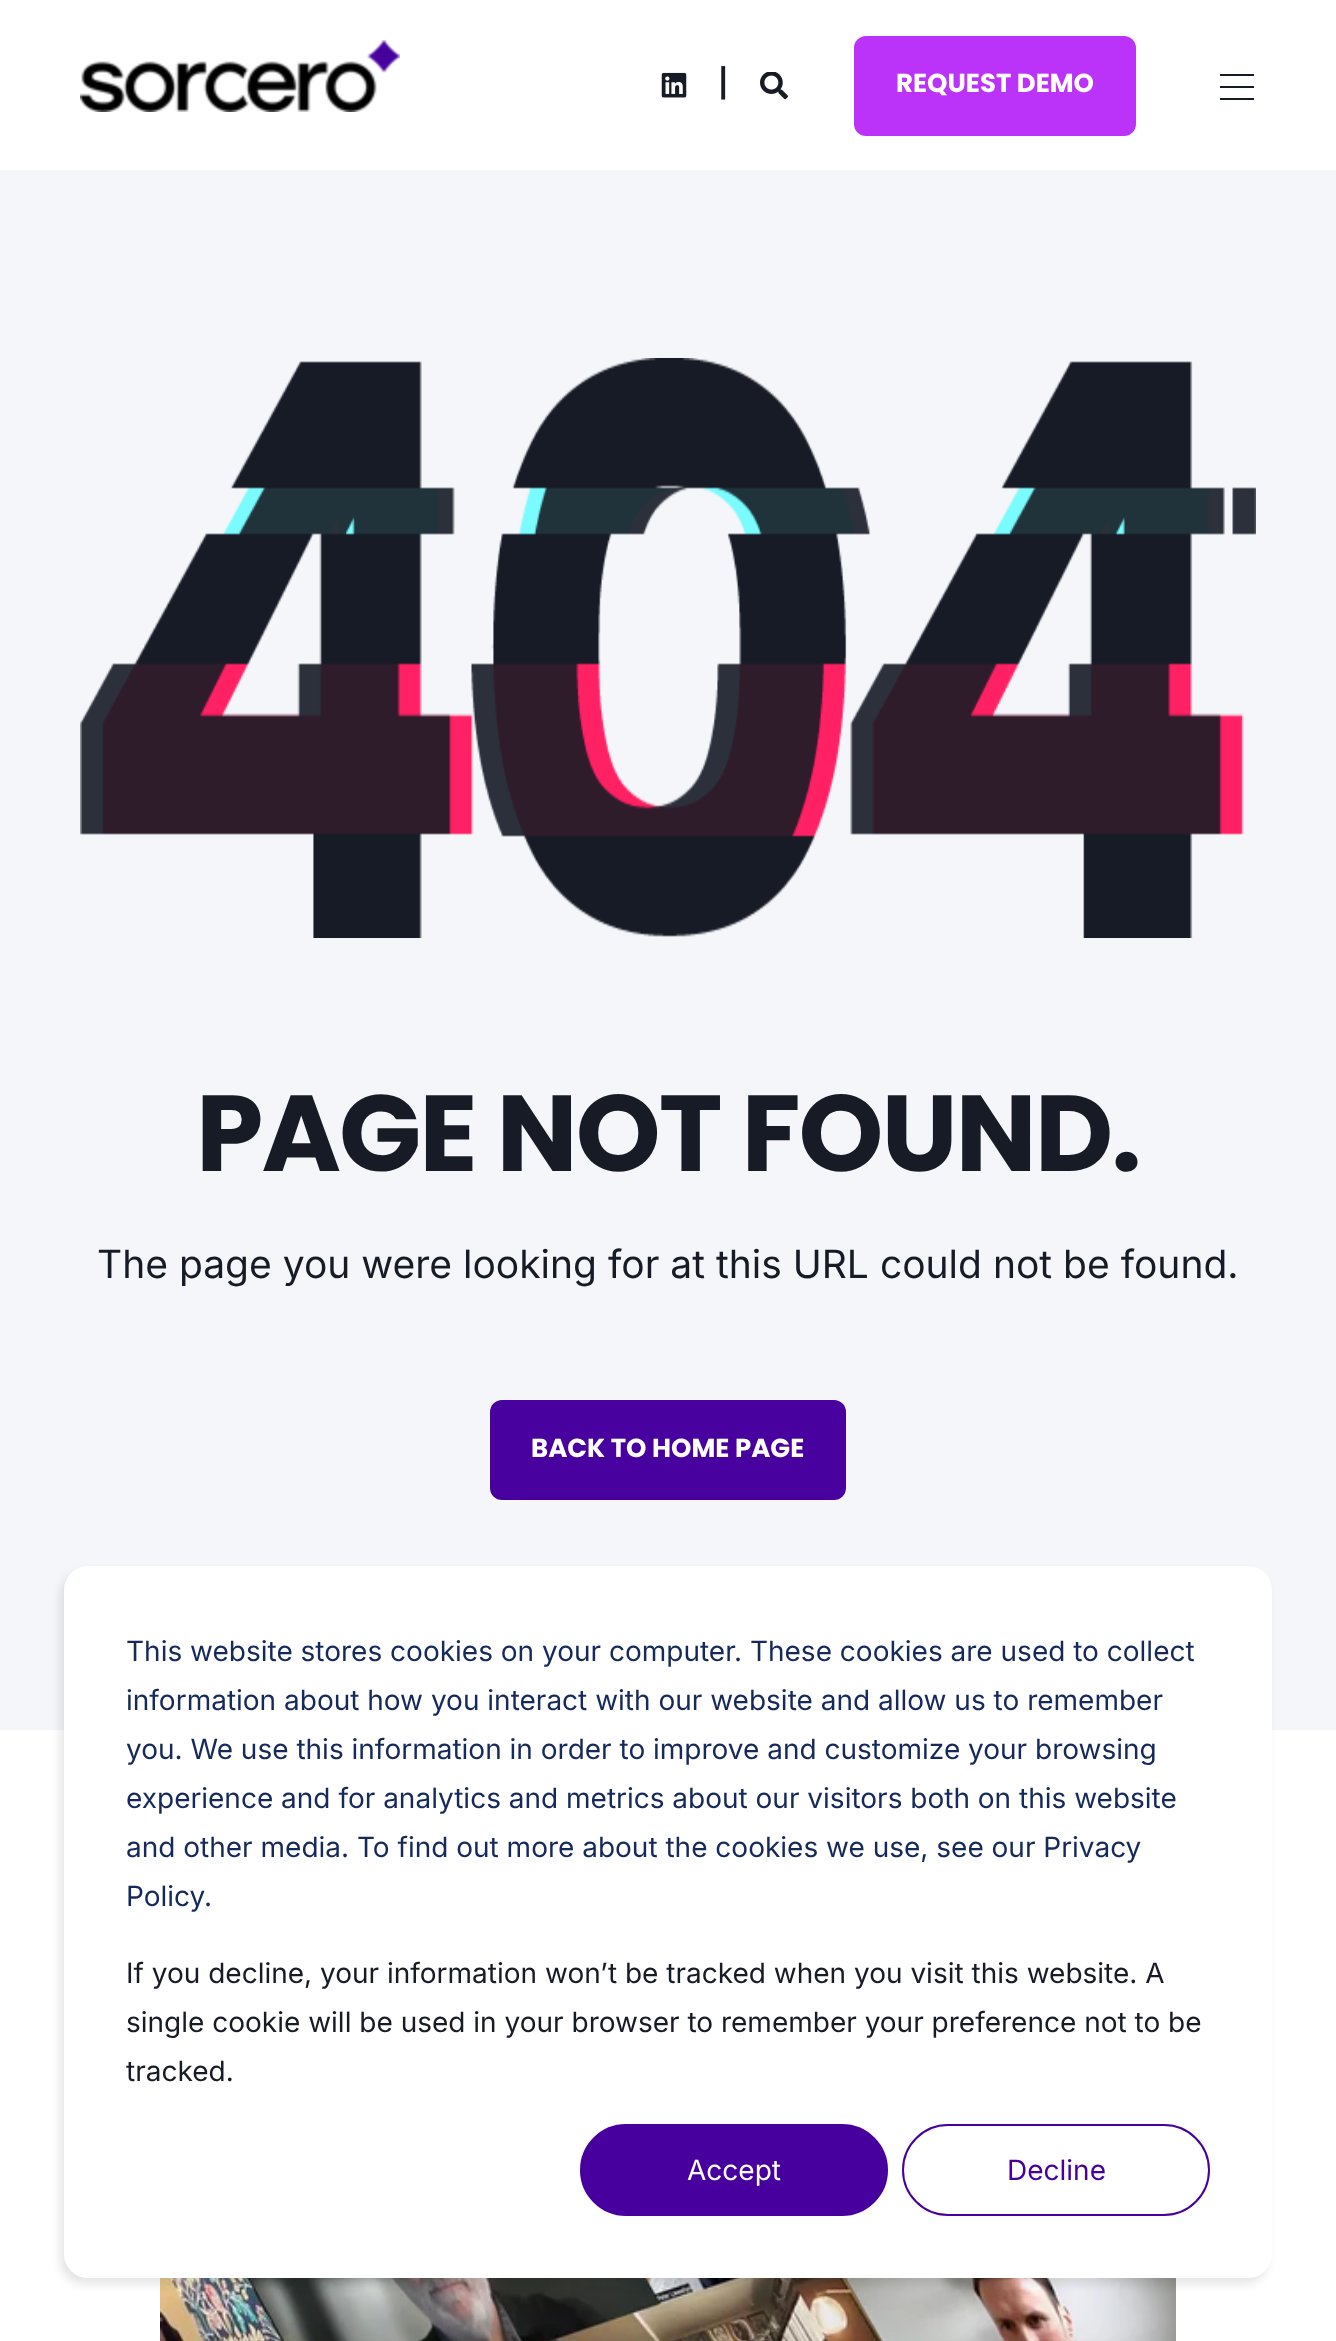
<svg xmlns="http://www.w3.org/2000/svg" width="1336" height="2341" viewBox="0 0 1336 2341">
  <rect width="100%" height="100%" fill="rgb(255,255,255)"/>
  <image x="80" y="40" width="320" height="72" href="pic1.png"/>
  <image x="661" y="72" width="26" height="26" href="pic2.png"/>
  <text x="718" y="93" font-family="Inter" font-size="28" font-weight="bold" fill="rgb(23,27,37)">|</text>
  <image x="760" y="72" width="28" height="28" href="pic3.png"/>
  <rect x="854" y="36" width="282" height="100" rx="12" fill="rgb(187,51,249)"/>
  <text x="896" y="92" font-family="Poppins" font-size="26" font-weight="bold" fill="rgb(255,255,255)">REQUEST DEMO</text>
  <rect x="1220" y="74" width="34" height="2" fill="rgb(23,27,37)"/>
  <rect x="1220" y="86" width="34" height="2" fill="rgb(23,27,37)"/>
  <rect x="1220" y="98" width="34" height="2" fill="rgb(23,27,37)"/>
  <rect x="0" y="170" width="1336" height="1560" fill="rgb(244,246,250)"/>
  <image x="80" y="358" width="1176" height="580" href="pic4.png"/>
  <text x="196" y="1171" font-family="Poppins" font-size="108" font-weight="bold" letter-spacing="-2" fill="rgb(23,27,37)">PAGE NOT FOUND.</text>
  <text x="97" y="1278" font-family="Inter" font-size="39" fill="rgb(23,27,37)">The page you were looking for at this URL could not be found.</text>
  <rect x="490" y="1400" width="356" height="100" rx="12" fill="rgb(72,0,158)"/>
  <text x="531" y="1457" font-family="Poppins" font-size="26" font-weight="bold" fill="rgb(255,255,255)">BACK TO HOME PAGE</text>
  <image x="160" y="2278" width="1016" height="63" href="pic5.png"/>
  <rect x="60" y="1572" width="1208" height="712" rx="24" fill="rgba(0,0,0,0.1)" filter="blur(5px)"/>
  <rect x="64" y="1566" width="1208" height="712" rx="24" fill="rgb(255,255,255)"/>
  <g font-family="Inter" font-size="28" fill="rgb(21,41,90)">
    <text>
      <tspan x="126" y="1661">This website stores cookies on your computer. These cookies are used to collect</tspan>
      <tspan x="126" y="1710">information about how you interact with our website and allow us to remember</tspan>
      <tspan x="126" y="1759">you. We use this information in order to improve and customize your browsing</tspan>
      <tspan x="126" y="1808">experience and for analytics and metrics about our visitors both on this website</tspan>
      <tspan x="126" y="1857">and other media. To find out more about the cookies we use, see our Privacy</tspan>
      <tspan x="126" y="1906">Policy.</tspan>
    </text>
  </g>
  <g font-family="Inter" font-size="28" fill="rgb(23,27,37)">
    <text>
      <tspan x="126" y="1983">If you decline, your information won’t be tracked when you visit this website. A</tspan>
      <tspan x="126" y="2032">single cookie will be used in your browser to remember your preference not to be</tspan>
      <tspan x="126" y="2081">tracked.</tspan>
    </text>
  </g>
  <rect x="581" y="2125" width="306" height="90" rx="45" fill="rgb(71,0,158)" stroke="rgb(71,0,158)" stroke-width="2"/>
  <text x="687" y="2180" font-family="Inter" font-size="28" fill="rgb(255,255,255)">Accept</text>
  <rect x="903" y="2125" width="306" height="90" rx="45" fill="none" stroke="rgb(71,0,158)" stroke-width="2"/>
  <text x="1007" y="2180" font-family="Inter" font-size="28" fill="rgb(71,0,158)">Decline</text>
</svg>
